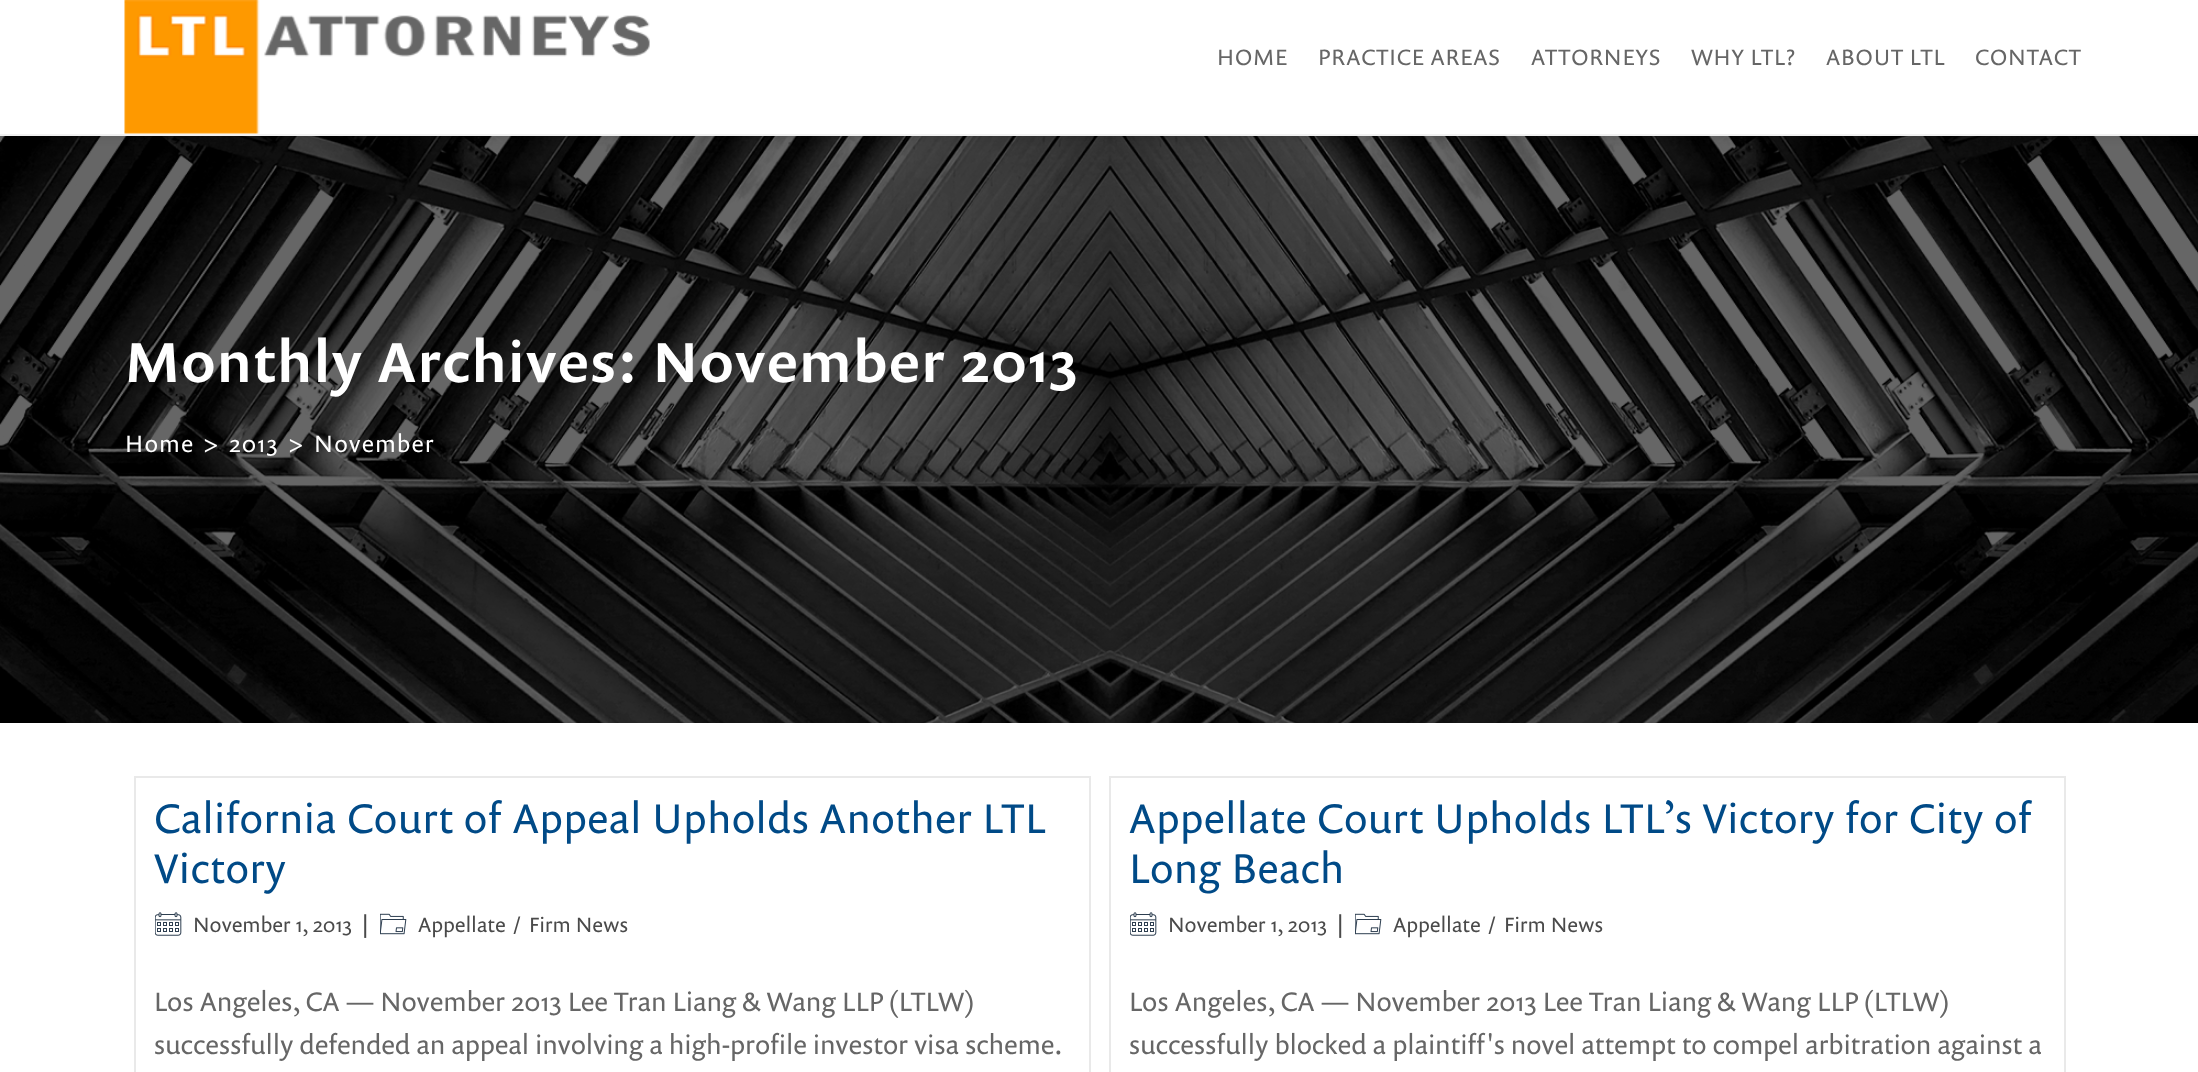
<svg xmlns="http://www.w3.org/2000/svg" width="2198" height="1072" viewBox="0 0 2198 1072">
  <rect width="100%" height="100%" fill="rgb(255,255,255)"/>
  <image x="0" y="136" width="2198" height="587" href="pic2.png"/>
  <rect x="0" y="3" width="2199" height="135" fill="rgba(0,0,0,0.1)" filter="blur(4px)"/>
  <rect x="0" y="0" width="2198" height="134" fill="rgb(255,255,255)"/>
  <rect x="0" y="134" width="2198" height="2" fill="rgb(241,241,241)"/>
  <image x="124" y="0" width="526" height="134" href="pic1.png"/>
  <g font-family="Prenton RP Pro" font-size="22.5" letter-spacing="0.9" fill="rgb(102,102,102)">
    <text x="1217" y="65">HOME</text>
    <text x="1318" y="65">PRACTICE AREAS</text>
    <text x="1531" y="65">ATTORNEYS</text>
    <text x="1691" y="65">WHY LTL?</text>
    <text x="1826" y="65">ABOUT LTL</text>
    <text x="1975" y="65">CONTACT</text>
  </g>
  <text x="125" y="382" font-family="Prenton RP Pro" font-size="57" font-weight="500" letter-spacing="2.1" fill="rgb(255,255,255)">Monthly Archives: November 2013</text>
  <g font-family="Prenton RP Pro" font-size="24" letter-spacing="1.5" fill="rgb(255,255,255)">
    <text x="125" y="452">Home</text>
    <text x="203" y="452">&gt;</text>
    <text x="229" y="452">2013</text>
    <text x="288" y="452">&gt;</text>
    <text x="314" y="452">November</text>
  </g>
  <rect x="135" y="777" width="955" height="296" fill="none" stroke="rgb(233,233,233)" stroke-width="2"/>
  <g font-family="Prenton RP Pro" font-size="42" letter-spacing="0.9" fill="rgb(0,74,135)">
    <text>
      <tspan x="154" y="833">California Court of Appeal Upholds Another LTL</tspan>
      <tspan x="154" y="883">Victory</tspan>
    </text>
  </g>
  <image x="155" y="912" width="27" height="24" href="pic3.png"/>
  <text x="193" y="932" font-family="Prenton RP Pro" font-size="21" letter-spacing="0.3" fill="rgb(74,74,74)">November 1, 2013</text>
  <text x="361" y="932" font-family="Prenton RP Pro" font-size="21" font-weight="bold" letter-spacing="0.3" fill="rgb(74,74,74)">|</text>
  <image x="380" y="913" width="27" height="22" href="pic4.png"/>
  <g font-family="Prenton RP Pro" font-size="21" letter-spacing="0.3" fill="rgb(74,74,74)">
    <text x="418" y="932">Appellate</text>
    <text x="513" y="932">/</text>
    <text x="529" y="932">Firm News</text>
  </g>
  <g font-family="Prenton RP Pro" font-size="27" letter-spacing="0.3" fill="rgb(102,102,102)">
    <text>
      <tspan x="154" y="1011" word-spacing="-0.1">Los Angeles, CA — November 2013 Lee Tran Liang &amp; Wang LLP (LTLW)</tspan>
      <tspan x="154" y="1054" word-spacing="-0.1">successfully defended an appeal involving a high-profile investor visa scheme.</tspan>
    </text>
  </g>
  <rect x="1110" y="777" width="955" height="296" fill="none" stroke="rgb(233,233,233)" stroke-width="2"/>
  <g font-family="Prenton RP Pro" font-size="42" letter-spacing="0.9" fill="rgb(0,74,135)">
    <text>
      <tspan x="1129" y="833">Appellate Court Upholds LTL’s Victory for City of</tspan>
      <tspan x="1129" y="883">Long Beach</tspan>
    </text>
  </g>
  <image x="1130" y="912" width="27" height="24" href="pic3.png"/>
  <text x="1168" y="932" font-family="Prenton RP Pro" font-size="21" letter-spacing="0.3" fill="rgb(74,74,74)">November 1, 2013</text>
  <text x="1336" y="932" font-family="Prenton RP Pro" font-size="21" font-weight="bold" letter-spacing="0.3" fill="rgb(74,74,74)">|</text>
  <image x="1355" y="913" width="27" height="22" href="pic4.png"/>
  <g font-family="Prenton RP Pro" font-size="21" letter-spacing="0.3" fill="rgb(74,74,74)">
    <text x="1393" y="932">Appellate</text>
    <text x="1488" y="932">/</text>
    <text x="1504" y="932">Firm News</text>
  </g>
  <g font-family="Prenton RP Pro" font-size="27" letter-spacing="0.3" fill="rgb(102,102,102)">
    <text>
      <tspan x="1129" y="1011" word-spacing="-0.1">Los Angeles, CA — November 2013 Lee Tran Liang &amp; Wang LLP (LTLW)</tspan>
      <tspan x="1129" y="1054">successfully blocked a plaintiff's novel attempt to compel arbitration against a</tspan>
    </text>
  </g>
</svg>
